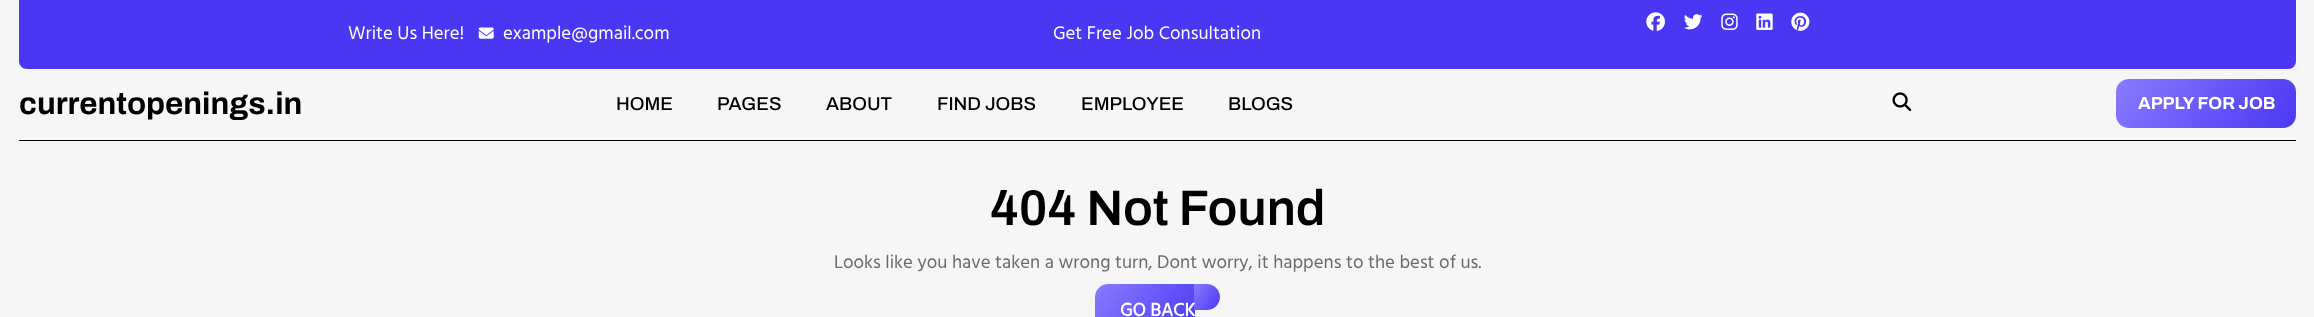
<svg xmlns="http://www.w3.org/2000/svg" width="2314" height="317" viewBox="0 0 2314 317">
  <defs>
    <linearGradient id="g1" gradientUnits="userSpaceOnUse" x1="2136" y1="52" x2="2277" y2="154"><stop offset="0" stop-color="rgb(137,123,255)"/><stop offset="1" stop-color="rgb(74,55,243)"/></linearGradient>
    <linearGradient id="g2" gradientUnits="userSpaceOnUse" x1="1099" y1="278" x2="1191" y2="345"><stop offset="0" stop-color="rgb(137,123,255)"/><stop offset="1" stop-color="rgb(74,55,243)"/></linearGradient>
    <linearGradient id="g3" gradientUnits="userSpaceOnUse" x1="1192" y1="286" x2="1222" y2="308"><stop offset="0" stop-color="rgb(137,123,255)"/><stop offset="1" stop-color="rgb(74,55,243)"/></linearGradient>
  </defs>
  <rect width="100%" height="100%" fill="rgb(246,246,246)"/>
  <path d="M19 0H2296V61C2296 65.5 2292.5 69 2288 69H27C22.5 69 19 65.5 19 61Z" fill="rgb(74,55,243)"/>
  <image x="1646" y="12" width="19" height="19" href="pic1.png"/>
  <image x="1684" y="14" width="19" height="16" href="pic2.png"/>
  <image x="1721" y="13" width="17" height="17" href="pic3.png"/>
  <image x="1756" y="13" width="17" height="17" href="pic4.png"/>
  <image x="1791" y="12" width="19" height="19" href="pic5.png"/>
  <text x="348" y="39" font-family="Hind" font-size="18.75" fill="rgb(255,255,255)">Write Us Here!</text>
  <image x="478" y="27" width="16" height="12" href="pic6.png"/>
  <g font-family="Hind" font-size="18.75" fill="rgb(255,255,255)">
    <text x="503" y="39">example@gmail.com</text>
    <text x="1053" y="39">Get Free Job Consultation</text>
  </g>
  <rect x="19" y="140" width="2277" height="1" fill="rgb(0,0,0)"/>
  <text x="19" y="114" font-family="Archivo" font-size="31.25" font-weight="bold" fill="rgb(0,0,0)">currentopenings.in</text>
  <g font-family="Archivo" font-size="18.75" font-weight="500" fill="rgb(0,0,0)">
    <text x="616" y="110">HOME</text>
    <text x="717" y="110">PAGES</text>
    <text x="826" y="110">ABOUT</text>
    <text x="937" y="110">FIND JOBS</text>
    <text x="1081" y="110">EMPLOYEE</text>
    <text x="1228" y="110">BLOGS</text>
  </g>
  <image x="1892" y="92" width="20" height="20" href="pic7.png"/>
  <rect x="2116" y="79" width="180" height="49" rx="13" fill="url(#g1)"/>
  <text x="2138" y="109" font-family="Archivo" font-size="17.5" font-weight="bold" fill="rgb(255,255,255)">APPLY FOR JOB</text>
  <text x="990" y="225" font-family="Archivo" font-size="50" font-weight="600" fill="rgb(0,0,0)">404 Not Found</text>
  <text x="834" y="268" font-family="Hind" font-size="18.75" fill="rgb(106,106,106)">Looks like you have taken a wrong turn, Dont worry, it happens to the best of us.</text>
  <path d="M1108 284H1195V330H1108C1101 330 1095 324 1095 317V297C1095 290 1101 284 1108 284Z" fill="url(#g2)"/>
  <path d="M1194 284H1207C1214 284 1220 290 1220 297C1220 304 1214 310 1207 310H1194Z" fill="url(#g3)"/>
  <text x="1120" y="316" font-family="Hind" font-size="18.75" font-weight="bold" fill="rgb(255,255,255)">GO BACK</text>
</svg>
